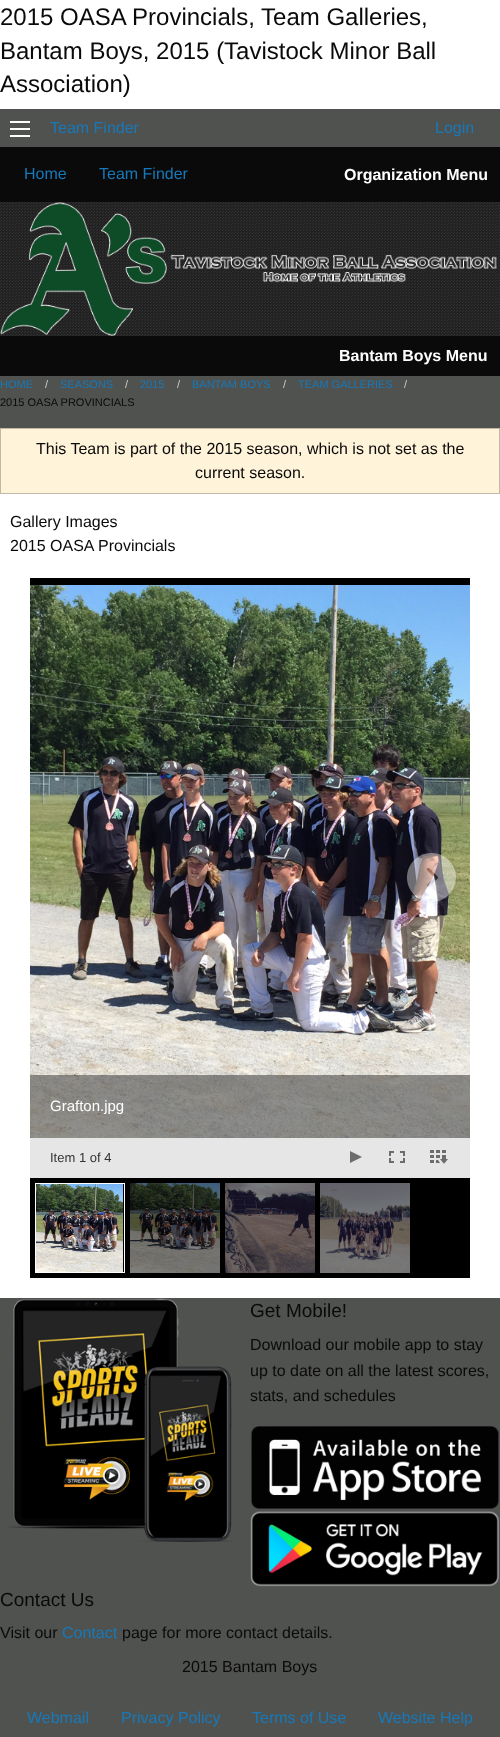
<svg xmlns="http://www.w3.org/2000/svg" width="500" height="1737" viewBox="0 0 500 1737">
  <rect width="100%" height="100%" fill="rgb(255,255,255)"/>
  <g font-family="Liberation Sans" font-size="24" fill="rgb(10,10,10)">
    <text>
      <tspan x="0" y="25">2015 OASA Provincials, Team Galleries,</tspan>
      <tspan x="0" y="59">Bantam Boys, 2015 (Tavistock Minor Ball</tspan>
      <tspan x="0" y="92">Association)</tspan>
    </text>
  </g>
  <rect x="0" y="109" width="500" height="1628" fill="rgb(80,82,79)"/>
  <rect x="10" y="135" width="20" height="2" fill="rgb(254,254,254)"/>
  <rect x="10" y="128" width="20" height="2" fill="rgb(254,254,254)"/>
  <rect x="10" y="121" width="20" height="2" fill="rgb(254,254,254)"/>
  <g font-family="Liberation Sans" font-size="16" fill="rgb(23,121,186)">
    <text x="50" y="133">Team Finder</text>
    <text x="435" y="133">Login</text>
  </g>
  <rect x="0" y="147" width="500" height="55" fill="rgb(10,10,10)"/>
  <g font-family="Liberation Sans" font-size="16" fill="rgb(23,121,186)">
    <text x="24" y="179">Home</text>
    <text x="99" y="179">Team Finder</text>
  </g>
  <text x="344" y="180" font-family="Liberation Sans" font-size="16" font-weight="bold" fill="rgb(254,254,254)">Organization Menu</text>
  <rect x="0" y="202" width="500" height="134" fill="rgb(34,34,34)"/>
  <image x="0" y="202" width="500" height="134" href="pic1.png"/>
  <image x="0" y="202" width="167" height="134" href="pic2.png"/>
  <image x="170" y="254" width="327" height="29" href="pic3.png"/>
  <rect x="0" y="336" width="500" height="40" fill="rgb(10,10,10)"/>
  <text x="339" y="361" font-family="Liberation Sans" font-size="16" font-weight="bold" fill="rgb(254,254,254)">Bantam Boys Menu</text>
  <text x="0" y="388" font-family="Liberation Sans" font-size="11" fill="rgb(23,121,186)">HOME</text>
  <text x="45" y="388" font-family="Liberation Sans" font-size="11" fill="rgb(202,202,202)">/</text>
  <text x="60" y="388" font-family="Liberation Sans" font-size="11" fill="rgb(23,121,186)">SEASONS</text>
  <text x="125" y="388" font-family="Liberation Sans" font-size="11" fill="rgb(202,202,202)">/</text>
  <text x="140" y="388" font-family="Liberation Sans" font-size="11" fill="rgb(23,121,186)">2015</text>
  <text x="177" y="388" font-family="Liberation Sans" font-size="11" fill="rgb(202,202,202)">/</text>
  <text x="192" y="388" font-family="Liberation Sans" font-size="11" fill="rgb(23,121,186)">BANTAM BOYS</text>
  <text x="283" y="388" font-family="Liberation Sans" font-size="11" fill="rgb(202,202,202)">/</text>
  <text x="298" y="388" font-family="Liberation Sans" font-size="11" fill="rgb(23,121,186)">TEAM GALLERIES</text>
  <text x="404" y="388" font-family="Liberation Sans" font-size="11" fill="rgb(202,202,202)">/</text>
  <text x="0" y="406" font-family="Liberation Sans" font-size="11" fill="rgb(10,10,10)">2015 OASA PROVINCIALS</text>
  <rect x="0" y="494" width="500" height="804" fill="rgb(255,255,255)"/>
  <rect x="0.5" y="428.5" width="499" height="65" fill="rgb(255,243,217)" stroke="rgb(194,185,165)"/>
  <g font-family="Liberation Sans" font-size="16" fill="rgb(10,10,10)">
    <text x="36" y="454">This Team is part of the 2015 season, which is not set as the</text>
    <text x="195" y="478">current season.</text>
    <text>
      <tspan x="10" y="527">Gallery Images</tspan>
      <tspan x="10" y="551">2015 OASA Provincials</tspan>
    </text>
  </g>
  <rect x="30" y="578" width="440" height="700" fill="rgb(0,0,0)"/>
  <image x="30" y="585" width="440" height="553" href="pic5.png"/>
  <image x="407" y="853" width="50" height="50" href="pic4.png"/>
  <rect x="30" y="1075" width="440" height="63" fill="rgba(75,75,75,0.6)"/>
  <text x="50" y="1111" font-family="Liberation Sans" font-size="15" fill="rgb(254,254,254)">Grafton.jpg</text>
  <rect x="30" y="1138" width="440" height="40" fill="rgb(230,230,230)"/>
  <text x="50" y="1162" font-family="Liberation Sans" font-size="13" fill="rgb(51,51,51)">Item 1 of 4</text>
  <image x="350" y="1151" width="12" height="12" href="pic6.png"/>
  <image x="389" y="1151" width="16" height="12" href="pic7.png"/>
  <image x="430" y="1150" width="18" height="14" href="pic8.png"/>
  <rect x="35.5" y="1183.5" width="89" height="89" fill="none" stroke="rgb(255,255,255)"/>
  <image x="36" y="1184" width="87" height="88" href="pic9.png"/>
  <image x="130" y="1183" width="90" height="90" href="pic10.png"/>
  <image x="225" y="1183" width="90" height="90" href="pic11.png"/>
  <image x="320" y="1183" width="90" height="90" href="pic12.png"/>
  <image x="7" y="1298" width="225" height="244" href="pic13.png"/>
  <text x="250" y="1317" font-family="Liberation Sans" font-size="19" fill="rgb(10,10,10)">Get Mobile!</text>
  <g font-family="Liberation Sans" font-size="16" fill="rgb(10,10,10)">
    <text>
      <tspan x="250" y="1350">Download our mobile app to stay</tspan>
      <tspan x="250" y="1376">up to date on all the latest scores,</tspan>
      <tspan x="250" y="1401">stats, and schedules</tspan>
    </text>
  </g>
  <image x="251" y="1426" width="248" height="83" href="pic14.png"/>
  <image x="250" y="1511" width="250" height="76" href="pic15.png"/>
  <text x="0" y="1606" font-family="Liberation Sans" font-size="19" fill="rgb(10,10,10)">Contact Us</text>
  <text x="0" y="1638" font-family="Liberation Sans" font-size="16" fill="rgb(10,10,10)">Visit our</text>
  <text x="62" y="1638" font-family="Liberation Sans" font-size="16" fill="rgb(23,121,186)">Contact</text>
  <g font-family="Liberation Sans" font-size="16" fill="rgb(10,10,10)">
    <text x="122" y="1638">page for more contact details.</text>
    <text x="182" y="1672">2015 Bantam Boys</text>
  </g>
  <g font-family="Liberation Sans" font-size="16" fill="rgb(23,121,186)">
    <text x="27" y="1723">Webmail</text>
    <text x="121" y="1723">Privacy Policy</text>
    <text x="252" y="1723">Terms of Use</text>
    <text x="378" y="1723">Website Help</text>
  </g>
</svg>
